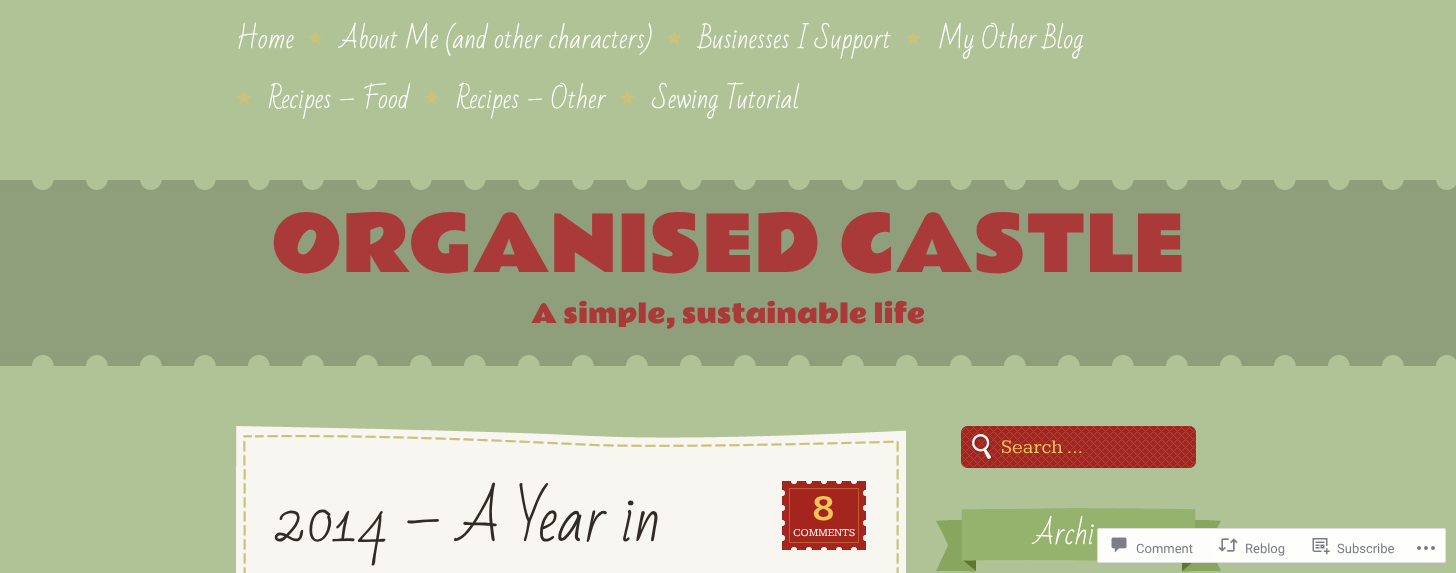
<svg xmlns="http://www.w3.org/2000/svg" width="1456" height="573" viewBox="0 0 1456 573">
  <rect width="100%" height="100%" fill="rgb(176,195,151)"/>
  <text x="236" y="48" font-family="Bad Script" font-size="26" fill="rgb(255,255,255)">Home</text>
  <image x="308" y="30" width="15" height="15" href="pic1.png"/>
  <text x="340" y="48" font-family="Bad Script" font-size="26" fill="rgb(255,255,255)">About Me (and other characters)</text>
  <image x="667" y="30" width="15" height="15" href="pic1.png"/>
  <text x="699" y="48" font-family="Bad Script" font-size="26" fill="rgb(255,255,255)">Businesses I Support</text>
  <image x="906" y="30" width="15" height="15" href="pic1.png"/>
  <text x="938" y="48" font-family="Bad Script" font-size="26" fill="rgb(255,255,255)">My Other Blog</text>
  <image x="236" y="90" width="16" height="15" href="pic2.png"/>
  <text x="268" y="108" font-family="Bad Script" font-size="26" fill="rgb(255,255,255)">Recipes – Food</text>
  <image x="424" y="90" width="15" height="15" href="pic1.png"/>
  <text x="456" y="108" font-family="Bad Script" font-size="26" fill="rgb(255,255,255)">Recipes – Other</text>
  <image x="620" y="90" width="15" height="15" href="pic1.png"/>
  <text x="652" y="108" font-family="Bad Script" font-size="26" fill="rgb(255,255,255)">Sewing Tutorial</text>
  <image x="0" y="180" width="1456" height="186" href="pic3.png"/>
  <rect x="0" y="190" width="1456" height="165" fill="rgb(143,158,123)"/>
  <text x="271" y="272" font-family="Rammetto One" font-size="75" fill="rgb(170,58,58)">ORGANISED CASTLE</text>
  <text x="531" y="323" font-family="Rammetto One" font-size="25" fill="rgb(170,58,58)">A simple, sustainable life</text>
  <image x="236" y="426" width="670" height="40" href="pic4.png"/>
  <rect x="236" y="466" width="670" height="107" fill="rgb(248,246,241)"/>
  <image x="243" y="468" width="656" height="105" href="pic5.png"/>
  <text x="276" y="541" font-family="Bad Script" font-size="60" fill="rgb(48,43,36)">2014 – A Year in</text>
  <image x="782" y="481" width="84" height="69" href="pic6.png"/>
  <rect x="789.5" y="488.5" width="69" height="54" fill="none" stroke="rgb(191,92,50)"/>
  <text x="812" y="520" font-family="Kameron" font-size="37" font-weight="bold" fill="rgb(242,196,89)">8</text>
  <text x="793" y="536" font-family="Kameron" font-size="11" fill="rgb(255,255,255)">COMMENTS</text>
  <rect x="961" y="426" width="235" height="42" rx="7" fill="rgb(163,37,29)"/>
  <image x="961" y="426" width="235" height="42" href="pic7.png"/>
  <text x="1001" y="453" font-family="Kameron" font-size="20" fill="rgb(242,196,89)">Search …</text>
  <image x="936" y="508" width="285" height="64" href="pic8.png"/>
  <image x="948" y="520" width="261" height="40" href="pic9.png"/>
  <text x="1034" y="544" font-family="Bad Script" font-size="29" fill="rgb(255,255,255)">Archi</text>
  <rect x="1097" y="528" width="349" height="35" rx="3" fill="rgba(255,255,255,0.98)"/>
  <rect x="1097.5" y="528.5" width="348" height="34" rx="2.5" fill="none" stroke="rgba(220,220,222,0.98)"/>
  <image x="1111" y="537" width="16" height="16" href="pic10.png"/>
  <text x="1136" y="553" font-family="Roboto" font-size="13" fill="rgb(121,125,130)">Comment</text>
  <image x="1218" y="538" width="20" height="14" href="pic11.png"/>
  <text x="1245" y="553" font-family="Roboto" font-size="13" fill="rgb(121,125,130)">Reblog</text>
  <image x="1312" y="538" width="18" height="17" href="pic12.png"/>
  <text x="1337" y="553" font-family="Roboto" font-size="13" fill="rgb(121,125,130)">Subscribe</text>
  <image x="1417" y="546" width="18" height="4" href="pic13.png"/>
</svg>
